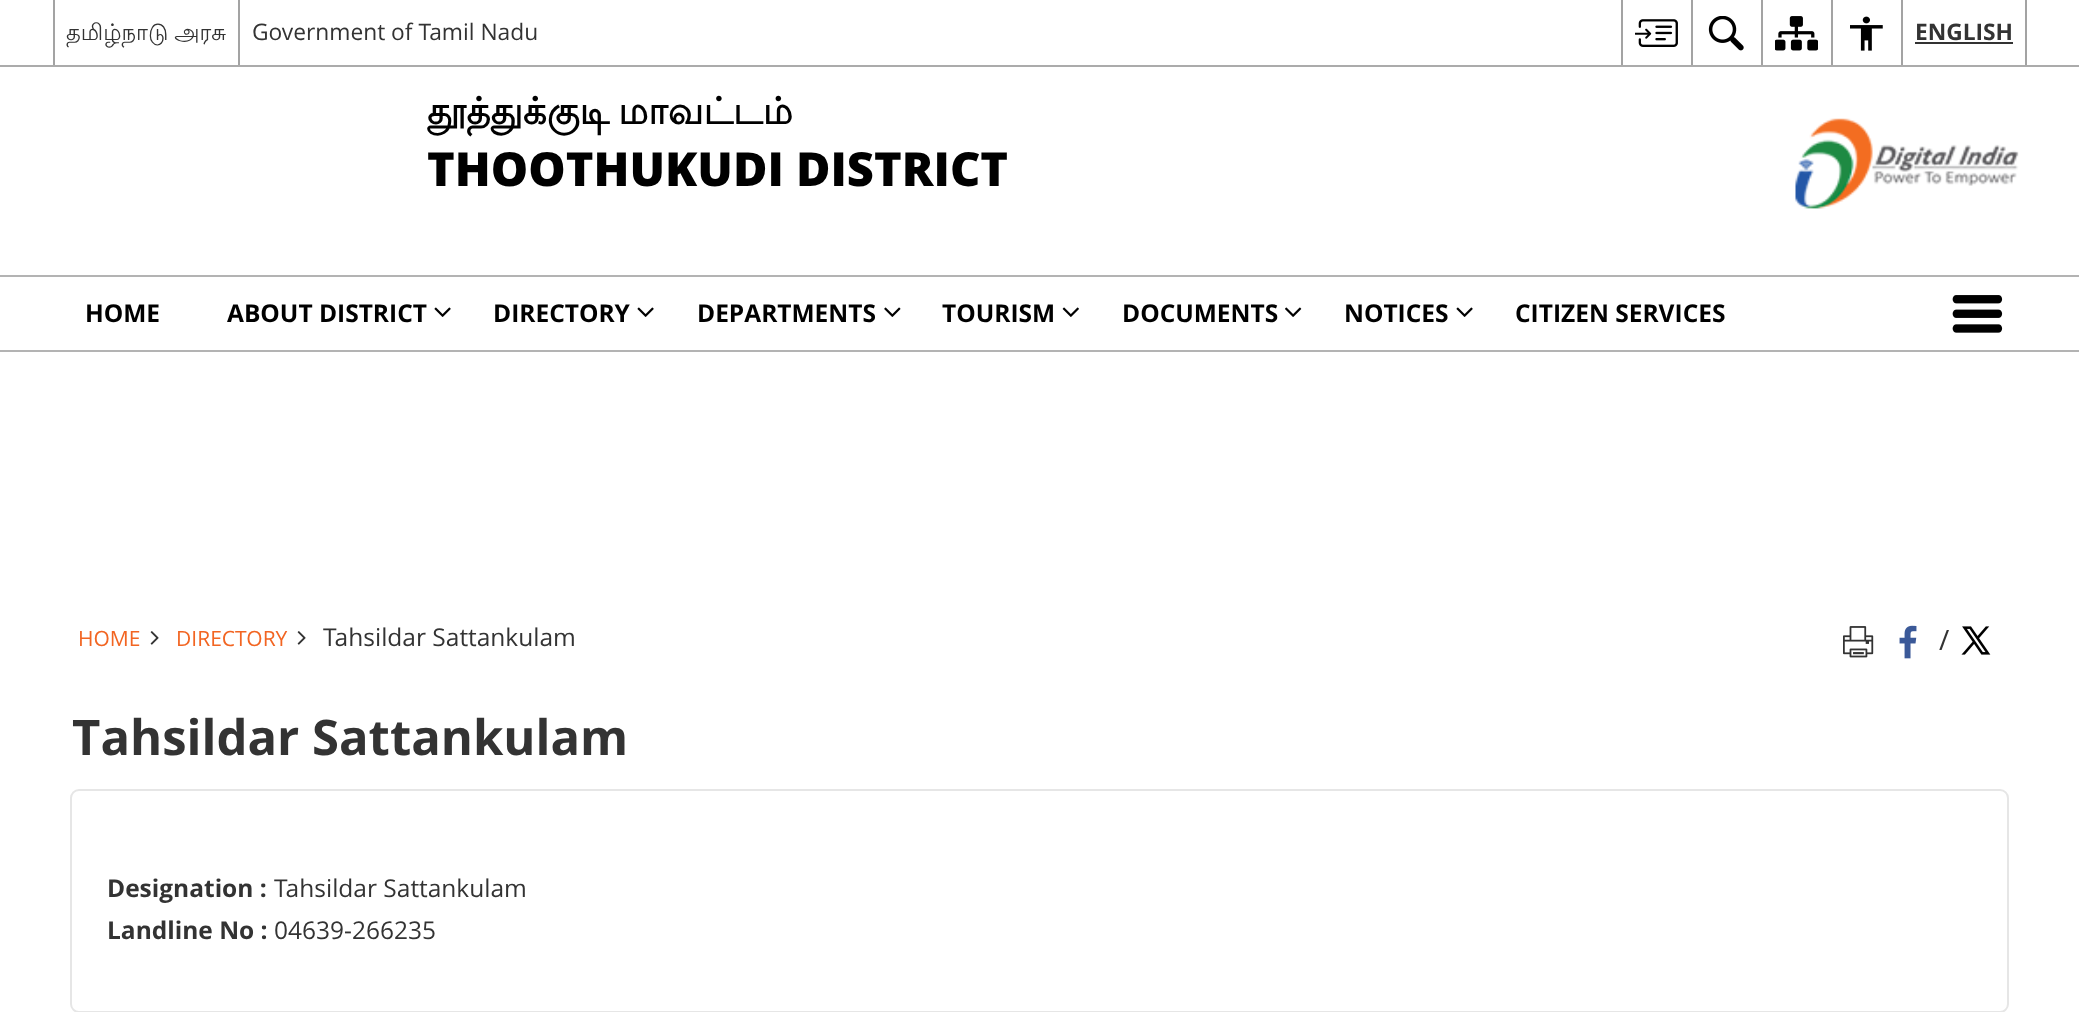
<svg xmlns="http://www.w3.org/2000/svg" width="2079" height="1012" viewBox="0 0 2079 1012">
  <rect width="100%" height="100%" fill="rgb(255,255,255)"/>
  <rect x="0" y="65" width="2079" height="2" fill="rgb(171,171,171)"/>
  <rect x="53" y="0" width="2" height="65" fill="rgb(163,163,163)"/>
  <text x="66" y="40" word-spacing="-1" font-family="Lohit Tamil" font-size="22.75" fill="rgb(51,51,51)">தமிழ்நாடு அரசு</text>
  <rect x="238" y="0" width="2" height="65" fill="rgb(163,163,163)"/>
  <text x="252" y="40" font-family="Open Sans" font-size="22.75" fill="rgb(51,51,51)">Government of Tamil Nadu</text>
  <rect x="1621" y="0" width="2" height="65" fill="rgb(163,163,163)"/>
  <image x="1635" y="19" width="43" height="28" href="pic1.png"/>
  <rect x="1691" y="0" width="2" height="65" fill="rgb(163,163,163)"/>
  <image x="1708" y="16" width="36" height="35" href="pic2.png"/>
  <rect x="1761" y="0" width="2" height="65" fill="rgb(163,163,163)"/>
  <image x="1775" y="16" width="43" height="35" href="pic3.png"/>
  <rect x="1831" y="0" width="2" height="65" fill="rgb(163,163,163)"/>
  <image x="1850" y="16" width="33" height="35" href="pic4.png"/>
  <rect x="2025" y="0" width="2" height="65" fill="rgb(163,163,163)"/>
  <rect x="1901" y="0" width="2" height="65" fill="rgb(163,163,163)"/>
  <text x="1915" y="40" font-family="Open Sans" font-size="22.75" font-weight="bold" fill="rgb(51,51,51)">ENGLISH</text>
  <rect x="1915" y="42" width="98" height="2" fill="rgb(51,51,51)"/>
  <text x="427" y="124" word-spacing="-2" font-family="Lohit Tamil" font-size="37.25" font-weight="bold" fill="rgb(0,0,0)">தூத்துக்குடி மாவட்டம்</text>
  <text x="427" y="186" font-family="Open Sans" font-size="47" font-weight="800" fill="rgb(0,0,0)">THOOTHUKUDI DISTRICT</text>
  <image x="1795" y="118" width="224" height="91" href="pic5.png"/>
  <rect x="0" y="275" width="2079" height="2" fill="rgb(179,179,179)"/>
  <rect x="0" y="350" width="2079" height="2" fill="rgb(179,179,179)"/>
  <g font-family="Open Sans" font-size="24.5" font-weight="bold" fill="rgb(0,0,0)">
    <text x="85" y="322">HOME</text>
    <text x="227" y="322">ABOUT DISTRICT</text>
  </g>
  <image x="434" y="307" width="17" height="10" href="pic6.png"/>
  <text x="493" y="322" font-family="Open Sans" font-size="24.5" font-weight="bold" fill="rgb(0,0,0)">DIRECTORY</text>
  <image x="637" y="307" width="17" height="10" href="pic6.png"/>
  <text x="697" y="322" font-family="Open Sans" font-size="24.5" font-weight="bold" fill="rgb(0,0,0)">DEPARTMENTS</text>
  <image x="884" y="307" width="17" height="10" href="pic7.png"/>
  <text x="942" y="322" font-family="Open Sans" font-size="24.5" font-weight="bold" fill="rgb(0,0,0)">TOURISM</text>
  <image x="1062" y="307" width="17" height="10" href="pic8.png"/>
  <text x="1122" y="322" font-family="Open Sans" font-size="24.5" font-weight="bold" fill="rgb(0,0,0)">DOCUMENTS</text>
  <image x="1285" y="307" width="17" height="10" href="pic9.png"/>
  <text x="1344" y="322" font-family="Open Sans" font-size="24.5" font-weight="bold" fill="rgb(0,0,0)">NOTICES</text>
  <image x="1456" y="307" width="17" height="10" href="pic6.png"/>
  <text x="1515" y="322" font-family="Open Sans" font-size="24.5" font-weight="bold" fill="rgb(0,0,0)">CITIZEN SERVICES</text>
  <image x="1952" y="295" width="51" height="38" href="pic10.png"/>
  <text x="78" y="646" font-family="Open Sans" font-size="21" fill="rgb(242,101,34)">HOME</text>
  <image x="150" y="631" width="9" height="14" href="pic11.png"/>
  <text x="176" y="646" font-family="Open Sans" font-size="21" fill="rgb(242,101,34)">DIRECTORY</text>
  <image x="297" y="631" width="9" height="14" href="pic11.png"/>
  <text x="323" y="646" font-family="Open Sans" font-size="24.5" fill="rgb(51,51,51)">Tahsildar Sattankulam</text>
  <image x="1843" y="626" width="31" height="32" href="pic12.png"/>
  <image x="1899" y="625" width="18" height="34" href="pic13.png"/>
  <text x="1939" y="650" font-family="Open Sans" font-size="28" fill="rgb(51,51,51)">/</text>
  <image x="1961" y="626" width="30" height="29" href="pic14.png"/>
  <text x="72" y="755" font-family="Open Sans" font-size="49" font-weight="bold" fill="rgb(51,51,51)">Tahsildar Sattankulam</text>
  <rect x="71" y="790" width="1937" height="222" rx="8" fill="none" stroke="rgb(230,230,230)" stroke-width="2"/>
  <text x="107" y="897" font-family="Open Sans" font-size="24.5" font-weight="bold" fill="rgb(51,51,51)">Designation :</text>
  <text x="274" y="897" font-family="Open Sans" font-size="24.5" fill="rgb(51,51,51)">Tahsildar Sattankulam</text>
  <text x="107" y="939" font-family="Open Sans" font-size="24.5" font-weight="bold" fill="rgb(51,51,51)">Landline No :</text>
  <text x="274" y="939" font-family="Open Sans" font-size="24.5" fill="rgb(51,51,51)">04639-266235</text>
</svg>
